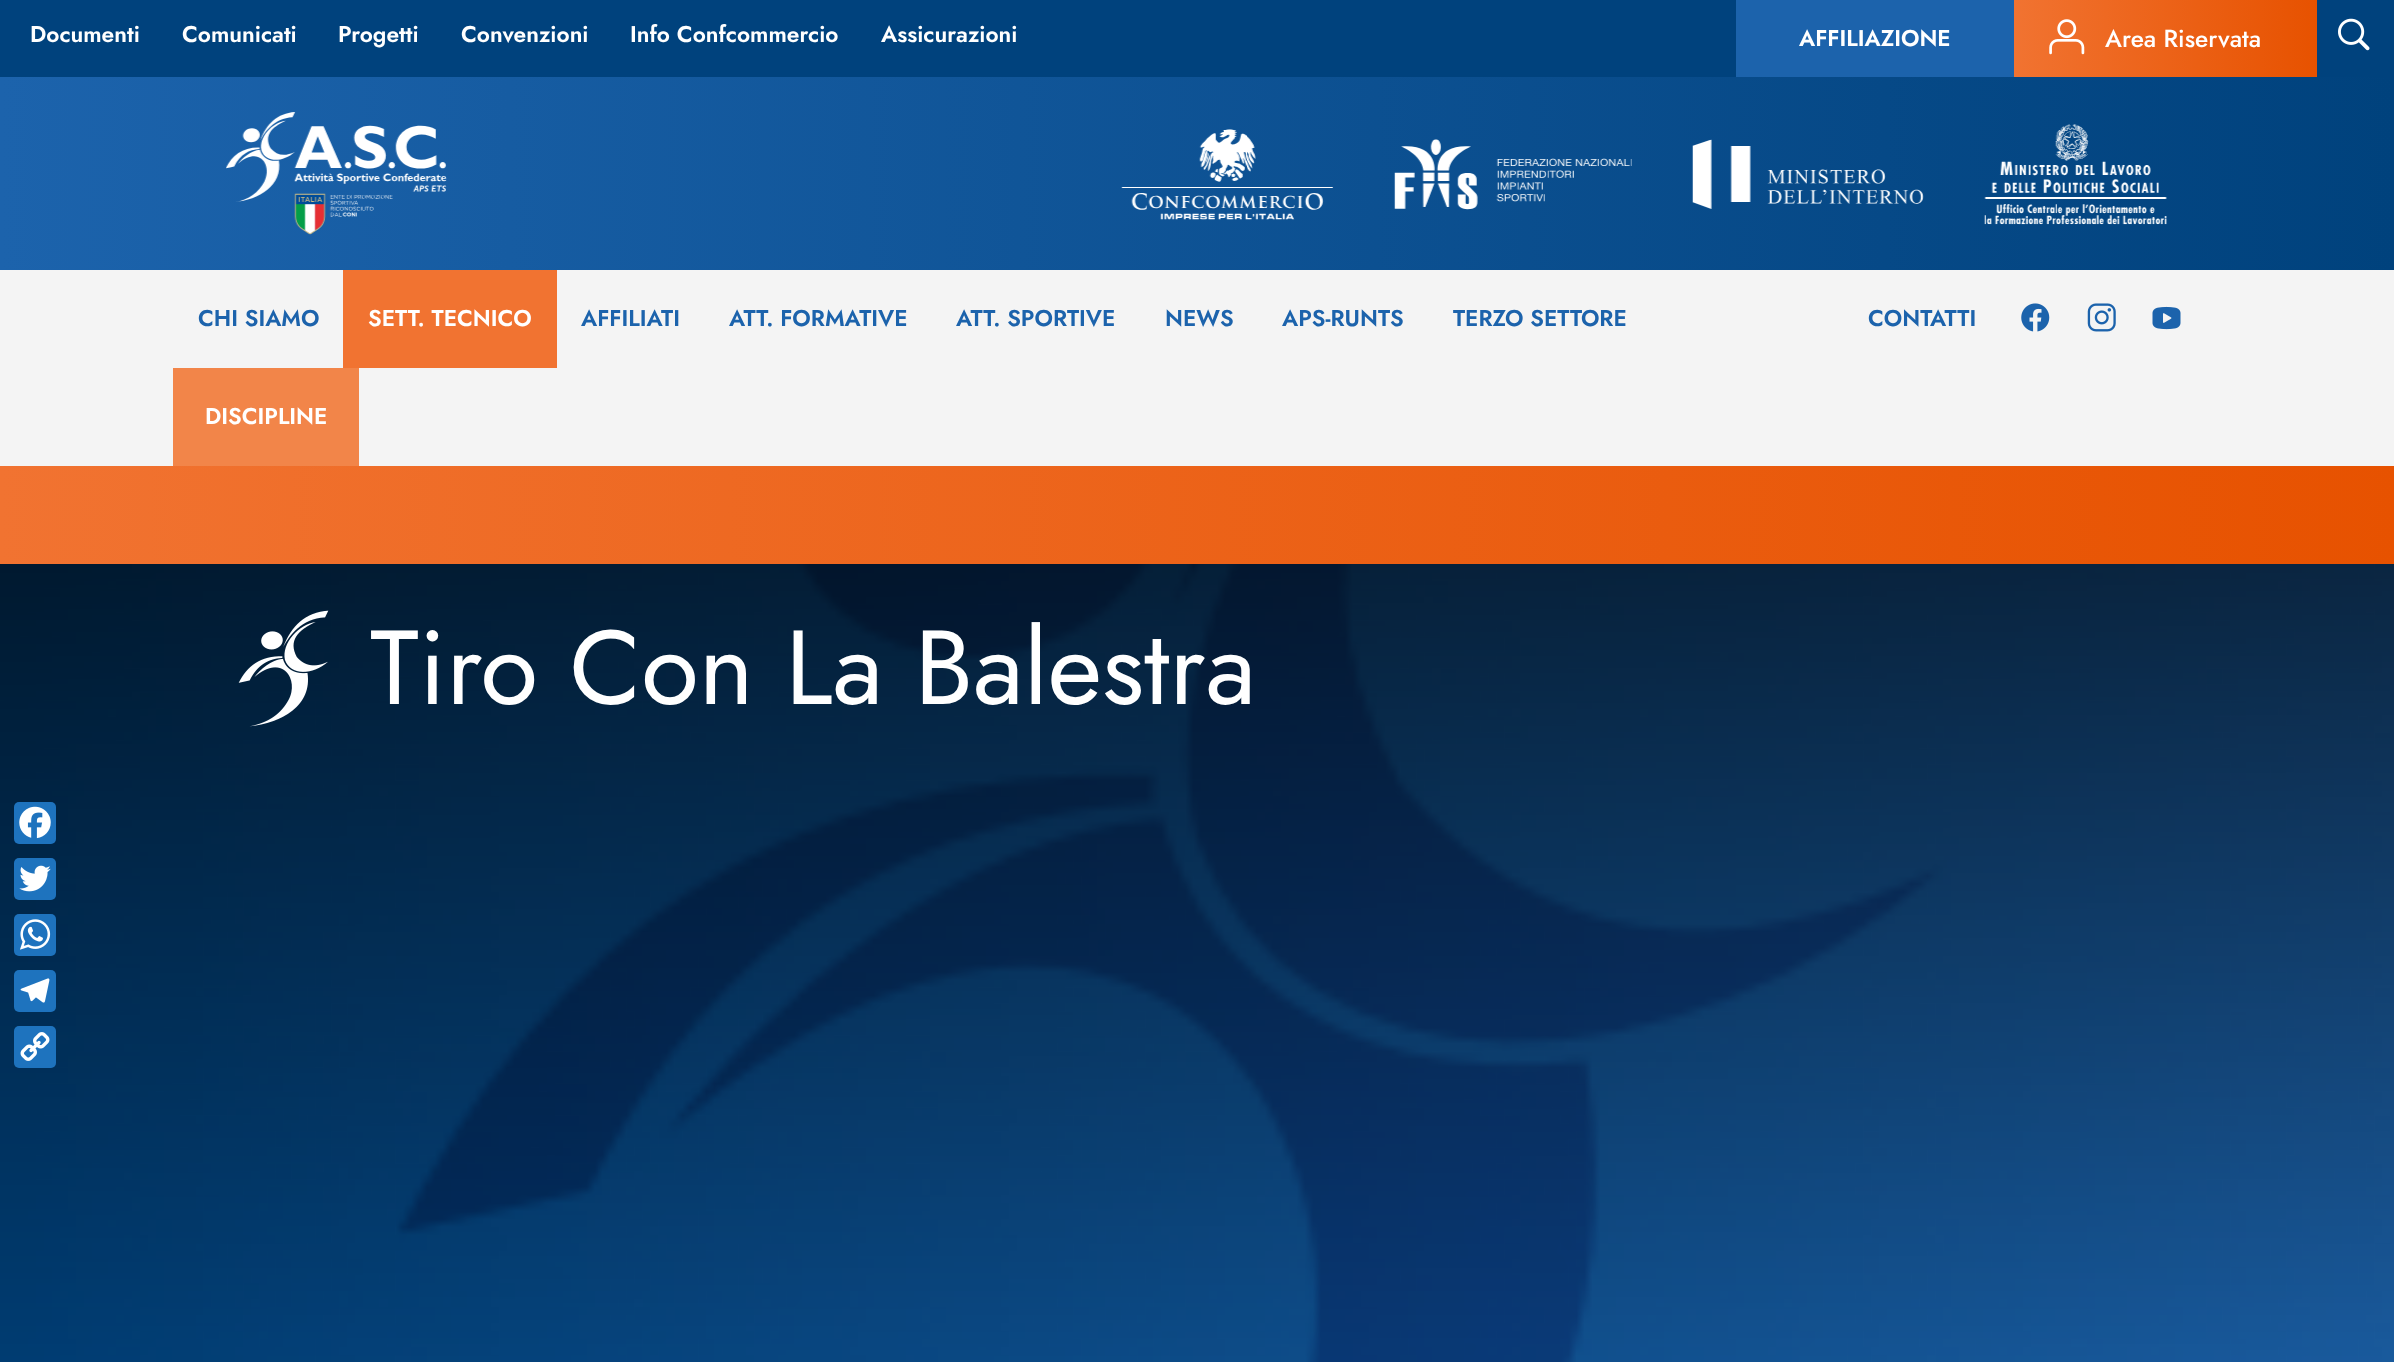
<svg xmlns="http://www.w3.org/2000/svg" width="2394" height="1362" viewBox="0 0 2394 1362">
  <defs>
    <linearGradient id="g1" gradientUnits="userSpaceOnUse" x1="2014" y1="39" x2="2317" y2="38"><stop offset="0" stop-color="rgb(241,115,49)"/><stop offset="1" stop-color="rgb(231,82,0)"/></linearGradient>
    <linearGradient id="g2" gradientUnits="userSpaceOnUse" x1="0" y1="173" x2="2394" y2="173"><stop offset="0" stop-color="rgb(28,99,172)"/><stop offset="1" stop-color="rgb(0,66,125)"/></linearGradient>
    <linearGradient id="g3" gradientUnits="userSpaceOnUse" x1="0" y1="515" x2="2394" y2="514"><stop offset="0" stop-color="rgb(241,115,49)"/><stop offset="1" stop-color="rgb(231,82,0)"/></linearGradient>
  </defs>
  <rect width="100%" height="100%" fill="rgb(255,255,255)"/>
  <rect x="0" y="0" width="2394" height="77" fill="rgb(0,66,125)"/>
  <g font-family="Jost" font-size="22.75" font-weight="600" fill="rgb(255,255,255)">
    <text x="30" y="42">Documenti</text>
    <text x="182" y="42">Comunicati</text>
    <text x="338" y="42">Progetti</text>
    <text x="461" y="42">Convenzioni</text>
    <text x="630" y="42">Info Confcommercio</text>
    <text x="881" y="42">Assicurazioni</text>
  </g>
  <rect x="1736" y="0" width="278" height="77" fill="rgb(28,99,172)"/>
  <text x="1799" y="46" font-family="Jost" font-size="22.75" font-weight="600" fill="rgb(255,255,255)">AFFILIAZIONE</text>
  <rect x="2014" y="0" width="303" height="77" fill="url(#g1)"/>
  <image x="2049" y="19" width="36" height="36" href="pic1.png"/>
  <text x="2105" y="47" font-family="Jost" font-size="24.5" font-weight="500" fill="rgb(255,255,255)">Area Riservata</text>
  <image x="2338" y="18" width="32" height="33" href="pic2.png"/>
  <rect x="0" y="77" width="2394" height="193" fill="url(#g2)"/>
  <image x="226" y="112" width="221" height="123" href="pic3.png"/>
  <image x="1121" y="129" width="213" height="91" href="pic4.png"/>
  <image x="1394" y="139" width="238" height="71" href="pic5.png"/>
  <image x="1692" y="139" width="232" height="70" href="pic6.png"/>
  <image x="1984" y="124" width="183" height="101" href="pic7.png"/>
  <rect x="0" y="270" width="2394" height="196" fill="rgb(244,244,244)"/>
  <text x="198" y="326" font-family="Jost" font-size="22.75" font-weight="600" fill="rgb(28,99,172)">CHI SIAMO</text>
  <rect x="343" y="270" width="214" height="98" fill="rgb(241,115,49)"/>
  <text x="368" y="326" font-family="Jost" font-size="22.75" font-weight="600" fill="rgb(255,255,255)">SETT. TECNICO</text>
  <rect x="173" y="368" width="186" height="98" fill="rgb(242,133,73)"/>
  <text x="205" y="424" font-family="Jost" font-size="22.75" font-weight="600" fill="rgb(255,255,255)">DISCIPLINE</text>
  <g font-family="Jost" font-size="22.75" font-weight="600" fill="rgb(28,99,172)">
    <text x="581" y="326">AFFILIATI</text>
    <text x="729" y="326">ATT. FORMATIVE</text>
    <text x="956" y="326">ATT. SPORTIVE</text>
    <text x="1165" y="326">NEWS</text>
    <text x="1282" y="326">APS-RUNTS</text>
    <text x="1453" y="326">TERZO SETTORE</text>
    <text x="1868" y="326">CONTATTI</text>
  </g>
  <image x="2021" y="303" width="29" height="29" href="pic8.png"/>
  <image x="2087" y="303" width="29" height="29" href="pic9.png"/>
  <image x="2152" y="306" width="29" height="24" href="pic10.png"/>
  <rect x="0" y="466" width="2394" height="98" fill="url(#g3)"/>
  <image x="0" y="564" width="2394" height="798" href="pic11.png"/>
  <image x="238" y="610" width="91" height="117" href="pic12.png"/>
  <text x="370" y="704" font-family="Jost" font-size="105" fill="rgb(255,255,255)">Tiro Con La Balestra</text>
  <rect x="14" y="802" width="42" height="42" rx="5" fill="rgb(30,115,190)"/>
  <image x="19" y="806" width="32" height="33" href="pic13.png"/>
  <rect x="14" y="858" width="42" height="42" rx="5" fill="rgb(30,115,190)"/>
  <image x="19" y="865" width="32" height="27" href="pic14.png"/>
  <rect x="14" y="914" width="42" height="42" rx="5" fill="rgb(30,115,190)"/>
  <image x="20" y="919" width="31" height="31" href="pic15.png"/>
  <rect x="14" y="970" width="42" height="42" rx="5" fill="rgb(30,115,190)"/>
  <image x="20" y="978" width="30" height="25" href="pic16.png"/>
  <rect x="14" y="1026" width="42" height="42" rx="5" fill="rgb(30,115,190)"/>
  <image x="20" y="1032" width="30" height="29" href="pic17.png"/>
</svg>
